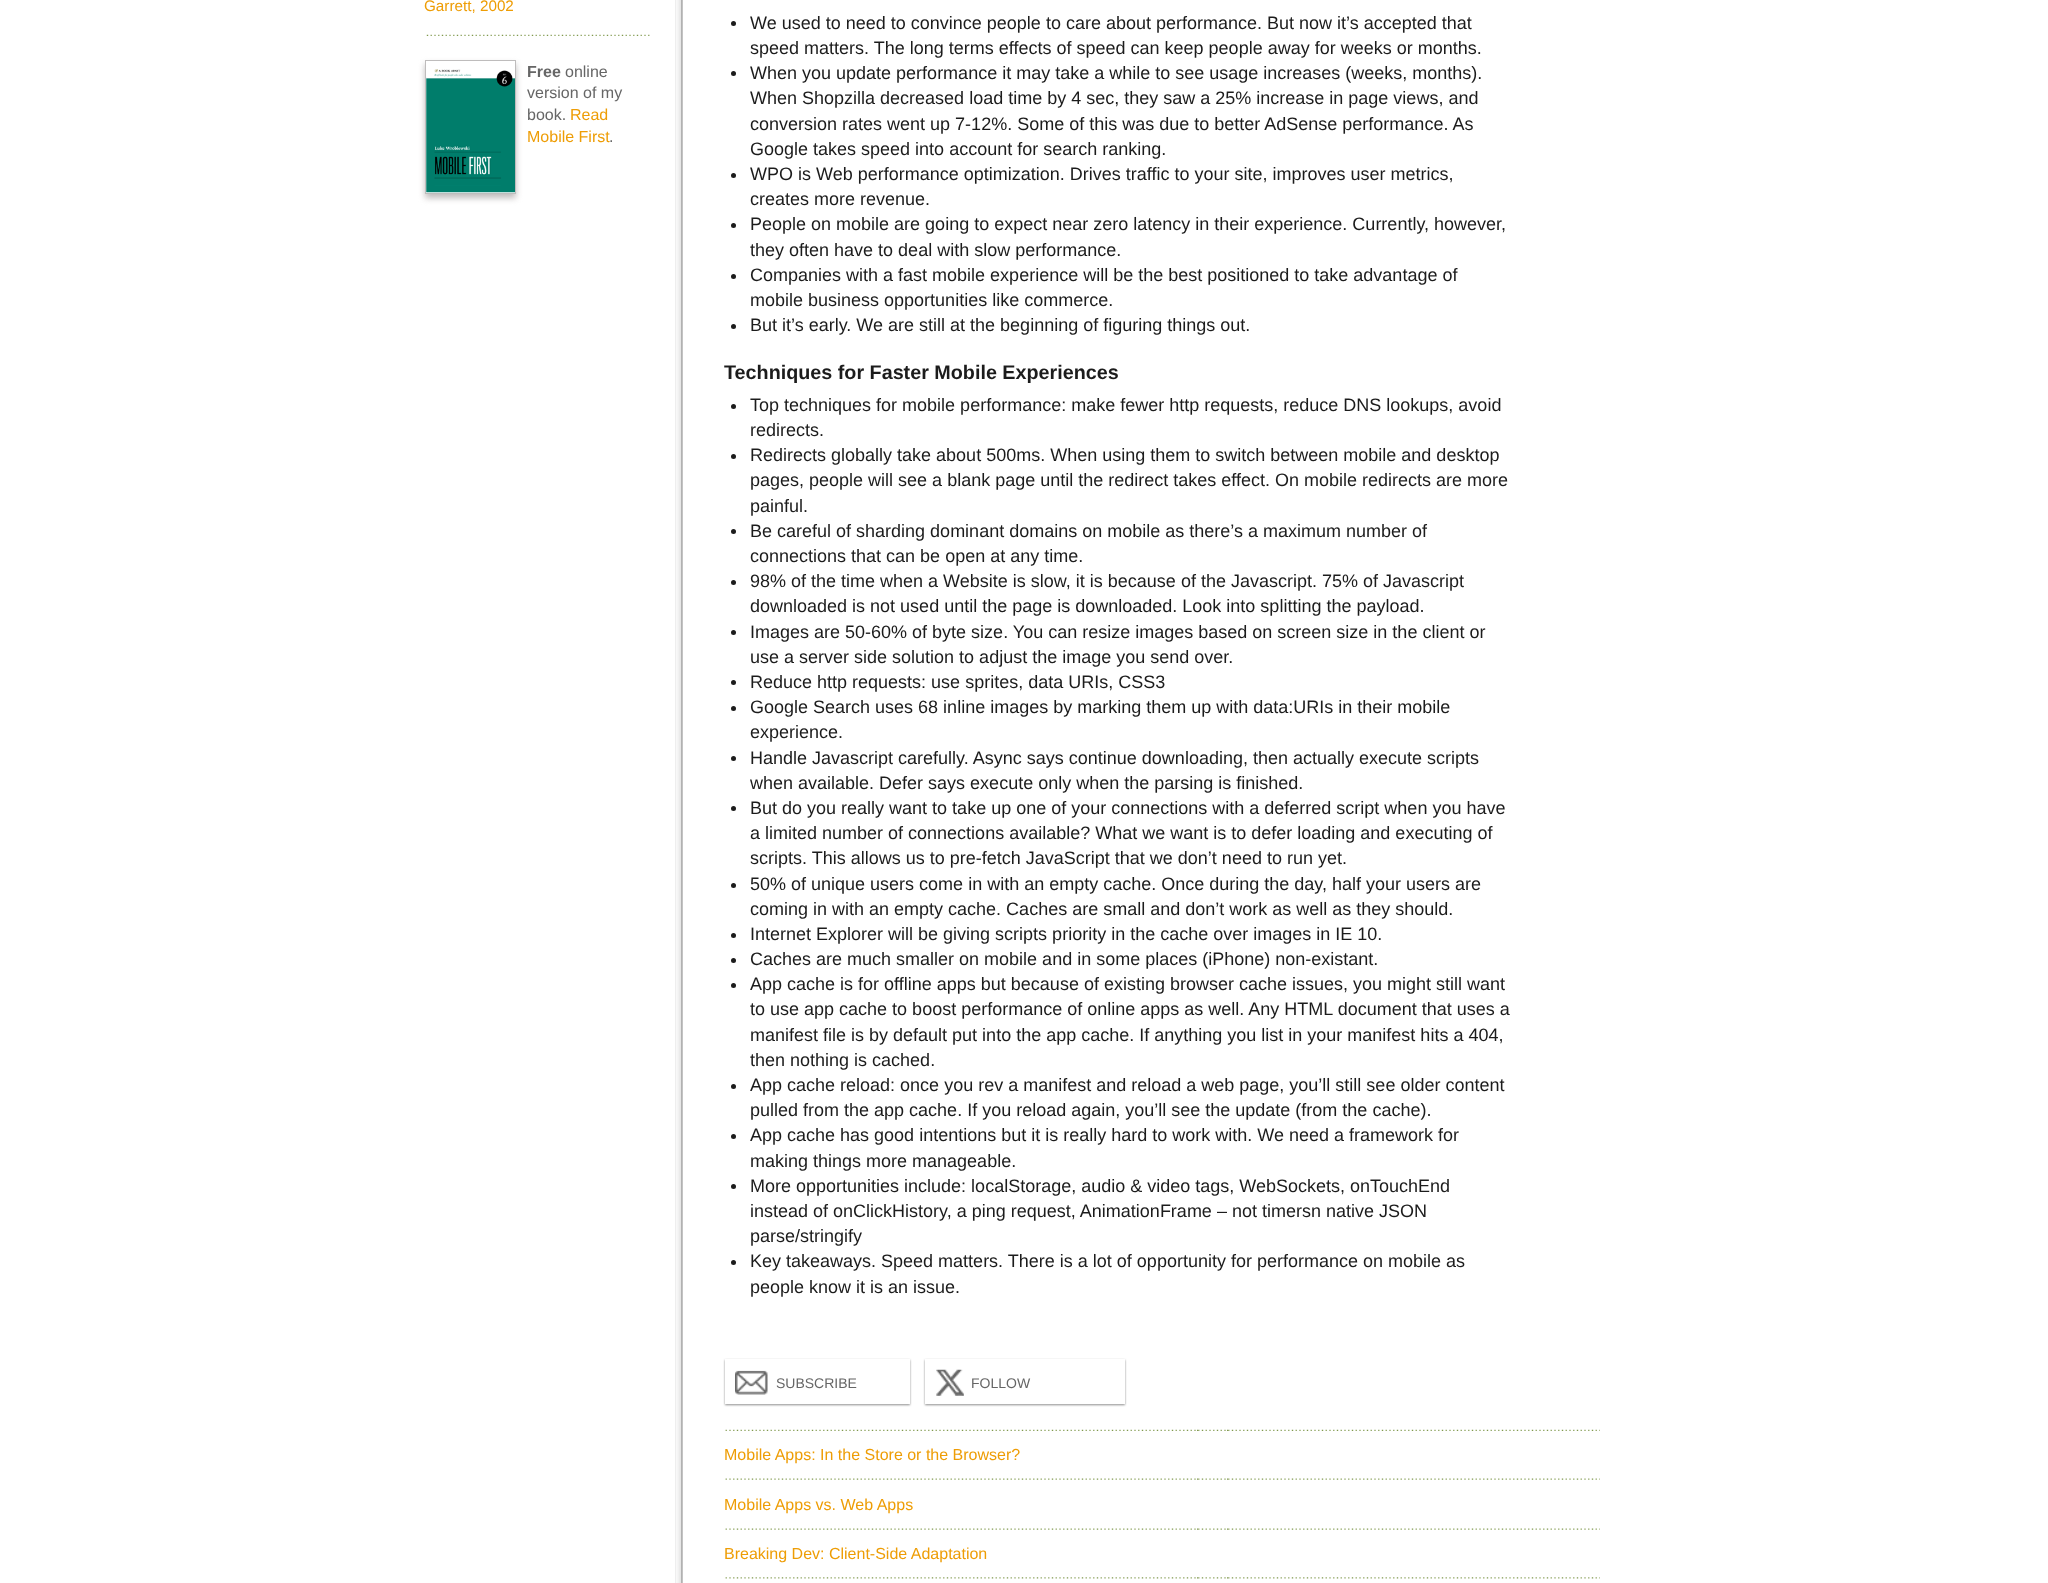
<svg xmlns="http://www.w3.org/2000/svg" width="2048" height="1583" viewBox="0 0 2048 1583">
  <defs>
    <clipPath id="clip1"><path d="M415 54H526V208H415ZM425 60H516V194H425Z" clip-rule="evenodd"/></clipPath>
  </defs>
  <rect width="100%" height="100%" fill="rgb(255,255,255)"/>
  <text x="424" y="11" font-family="Liberation Sans" font-size="15.25" fill="rgb(238,157,5)">Garrett, 2002</text>
  <image x="426" y="34" width="224" height="2" href="pic1.png"/>
  <g clip-path="url(#clip1)">
    <rect x="425" y="64" width="91" height="134" fill="rgb(191,187,187)" filter="blur(3px)"/>
  </g>
  <rect x="425.5" y="60.5" width="90" height="133" fill="none" stroke="rgb(190,188,188)"/>
  <image x="426" y="69" width="89" height="124" href="pic2.png"/>
  <text x="527" y="77" font-family="Liberation Sans" font-size="16" font-weight="bold" fill="rgb(102,102,102)">Free</text>
  <g font-family="Liberation Sans" font-size="16" fill="rgb(102,102,102)">
    <text x="565" y="77">online</text>
    <text>
      <tspan x="527" y="98">version of my</tspan>
      <tspan x="527" y="120">book.</tspan>
    </text>
  </g>
  <g font-family="Liberation Sans" font-size="16" fill="rgb(238,157,5)">
    <text x="570" y="120">Read</text>
    <text x="527" y="142">Mobile First</text>
  </g>
  <text x="609" y="142" font-family="Liberation Sans" font-size="16" fill="rgb(102,102,102)">.</text>
  <image x="675" y="0" width="8" height="1583" href="pic3.png"/>
  <circle cx="733.5" cy="23.5" r="2.5" fill="rgb(28,28,28)"/>
  <g font-family="Liberation Sans" font-size="18" fill="rgb(28,28,28)">
    <text>
      <tspan x="750" y="29">We used to need to convince people to care about performance. But now it’s accepted that</tspan>
      <tspan x="750" y="54">speed matters. The long terms effects of speed can keep people away for weeks or months.</tspan>
    </text>
  </g>
  <circle cx="733.5" cy="73.5" r="2.5" fill="rgb(28,28,28)"/>
  <g font-family="Liberation Sans" font-size="18" fill="rgb(28,28,28)">
    <text>
      <tspan x="750" y="79">When you update performance it may take a while to see usage increases (weeks, months).</tspan>
      <tspan x="750" y="104">When Shopzilla decreased load time by 4 sec, they saw a 25% increase in page views, and</tspan>
      <tspan x="750" y="130">conversion rates went up 7-12%. Some of this was due to better AdSense performance. As</tspan>
      <tspan x="750" y="155">Google takes speed into account for search ranking.</tspan>
    </text>
  </g>
  <circle cx="733.5" cy="175.5" r="2.5" fill="rgb(28,28,28)"/>
  <g font-family="Liberation Sans" font-size="18" fill="rgb(28,28,28)">
    <text>
      <tspan x="750" y="180">WPO is Web performance optimization. Drives traffic to your site, improves user metrics,</tspan>
      <tspan x="750" y="205">creates more revenue.</tspan>
    </text>
  </g>
  <circle cx="733.5" cy="225.5" r="2.5" fill="rgb(28,28,28)"/>
  <g font-family="Liberation Sans" font-size="18" fill="rgb(28,28,28)">
    <text>
      <tspan x="750" y="230">People on mobile are going to expect near zero latency in their experience. Currently, however,</tspan>
      <tspan x="750" y="256">they often have to deal with slow performance.</tspan>
    </text>
  </g>
  <circle cx="733.5" cy="276.5" r="2.5" fill="rgb(28,28,28)"/>
  <g font-family="Liberation Sans" font-size="18" fill="rgb(28,28,28)">
    <text>
      <tspan x="750" y="281">Companies with a fast mobile experience will be the best positioned to take advantage of</tspan>
      <tspan x="750" y="306">mobile business opportunities like commerce.</tspan>
    </text>
  </g>
  <circle cx="733.5" cy="326.5" r="2.5" fill="rgb(28,28,28)"/>
  <text x="750" y="331" font-family="Liberation Sans" font-size="18" fill="rgb(28,28,28)">But it’s early. We are still at the beginning of figuring things out.</text>
  <text x="724" y="379" font-family="Liberation Sans" font-size="19.75" font-weight="bold" fill="rgb(28,28,28)">Techniques for Faster Mobile Experiences</text>
  <circle cx="733.5" cy="406.5" r="2.5" fill="rgb(28,28,28)"/>
  <g font-family="Liberation Sans" font-size="18" fill="rgb(28,28,28)">
    <text>
      <tspan x="750" y="411">Top techniques for mobile performance: make fewer http requests, reduce DNS lookups, avoid</tspan>
      <tspan x="750" y="436">redirects.</tspan>
    </text>
  </g>
  <circle cx="733.5" cy="456.5" r="2.5" fill="rgb(28,28,28)"/>
  <g font-family="Liberation Sans" font-size="18" fill="rgb(28,28,28)">
    <text>
      <tspan x="750" y="461">Redirects globally take about 500ms. When using them to switch between mobile and desktop</tspan>
      <tspan x="750" y="486">pages, people will see a blank page until the redirect takes effect. On mobile redirects are more</tspan>
      <tspan x="750" y="512">painful.</tspan>
    </text>
  </g>
  <circle cx="733.5" cy="531.5" r="2.5" fill="rgb(28,28,28)"/>
  <g font-family="Liberation Sans" font-size="18" fill="rgb(28,28,28)">
    <text>
      <tspan x="750" y="537">Be careful of sharding dominant domains on mobile as there’s a maximum number of</tspan>
      <tspan x="750" y="562">connections that can be open at any time.</tspan>
    </text>
  </g>
  <circle cx="733.5" cy="582.5" r="2.5" fill="rgb(28,28,28)"/>
  <g font-family="Liberation Sans" font-size="18" fill="rgb(28,28,28)">
    <text>
      <tspan x="750" y="587">98% of the time when a Website is slow, it is because of the Javascript. 75% of Javascript</tspan>
      <tspan x="750" y="612">downloaded is not used until the page is downloaded. Look into splitting the payload.</tspan>
    </text>
  </g>
  <circle cx="733.5" cy="632.5" r="2.5" fill="rgb(28,28,28)"/>
  <g font-family="Liberation Sans" font-size="18" fill="rgb(28,28,28)">
    <text>
      <tspan x="750" y="638">Images are 50-60% of byte size. You can resize images based on screen size in the client or</tspan>
      <tspan x="750" y="663">use a server side solution to adjust the image you send over.</tspan>
    </text>
  </g>
  <circle cx="733.5" cy="682.5" r="2.5" fill="rgb(28,28,28)"/>
  <text x="750" y="688" font-family="Liberation Sans" font-size="18" fill="rgb(28,28,28)">Reduce http requests: use sprites, data URIs, CSS3</text>
  <circle cx="733.5" cy="708.5" r="2.5" fill="rgb(28,28,28)"/>
  <g font-family="Liberation Sans" font-size="18" fill="rgb(28,28,28)">
    <text>
      <tspan x="750" y="713">Google Search uses 68 inline images by marking them up with data:URIs in their mobile</tspan>
      <tspan x="750" y="738">experience.</tspan>
    </text>
  </g>
  <circle cx="733.5" cy="758.5" r="2.5" fill="rgb(28,28,28)"/>
  <g font-family="Liberation Sans" font-size="18" fill="rgb(28,28,28)">
    <text>
      <tspan x="750" y="764">Handle Javascript carefully. Async says continue downloading, then actually execute scripts</tspan>
      <tspan x="750" y="789">when available. Defer says execute only when the parsing is finished.</tspan>
    </text>
  </g>
  <circle cx="733.5" cy="808.5" r="2.5" fill="rgb(28,28,28)"/>
  <g font-family="Liberation Sans" font-size="18" fill="rgb(28,28,28)">
    <text>
      <tspan x="750" y="814">But do you really want to take up one of your connections with a deferred script when you have</tspan>
      <tspan x="750" y="839">a limited number of connections available? What we want is to defer loading and executing of</tspan>
      <tspan x="750" y="864">scripts. This allows us to pre-fetch JavaScript that we don’t need to run yet.</tspan>
    </text>
  </g>
  <circle cx="733.5" cy="885.5" r="2.5" fill="rgb(28,28,28)"/>
  <g font-family="Liberation Sans" font-size="18" fill="rgb(28,28,28)">
    <text>
      <tspan x="750" y="890">50% of unique users come in with an empty cache. Once during the day, half your users are</tspan>
      <tspan x="750" y="915">coming in with an empty cache. Caches are small and don’t work as well as they should.</tspan>
    </text>
  </g>
  <circle cx="733.5" cy="935.5" r="2.5" fill="rgb(28,28,28)"/>
  <text x="750" y="940" font-family="Liberation Sans" font-size="18" fill="rgb(28,28,28)">Internet Explorer will be giving scripts priority in the cache over images in IE 10.</text>
  <circle cx="733.5" cy="960.5" r="2.5" fill="rgb(28,28,28)"/>
  <text x="750" y="965" font-family="Liberation Sans" font-size="18" fill="rgb(28,28,28)">Caches are much smaller on mobile and in some places (iPhone) non-existant.</text>
  <circle cx="733.5" cy="985.5" r="2.5" fill="rgb(28,28,28)"/>
  <g font-family="Liberation Sans" font-size="18" fill="rgb(28,28,28)">
    <text>
      <tspan x="750" y="990">App cache is for offline apps but because of existing browser cache issues, you might still want</tspan>
      <tspan x="750" y="1015">to use app cache to boost performance of online apps as well. Any HTML document that uses a</tspan>
      <tspan x="750" y="1041">manifest file is by default put into the app cache. If anything you list in your manifest hits a 404,</tspan>
      <tspan x="750" y="1066">then nothing is cached.</tspan>
    </text>
  </g>
  <circle cx="733.5" cy="1086.5" r="2.5" fill="rgb(28,28,28)"/>
  <g font-family="Liberation Sans" font-size="18" fill="rgb(28,28,28)">
    <text>
      <tspan x="750" y="1091">App cache reload: once you rev a manifest and reload a web page, you’ll still see older content</tspan>
      <tspan x="750" y="1116">pulled from the app cache. If you reload again, you’ll see the update (from the cache).</tspan>
    </text>
  </g>
  <circle cx="733.5" cy="1136.5" r="2.5" fill="rgb(28,28,28)"/>
  <g font-family="Liberation Sans" font-size="18" fill="rgb(28,28,28)">
    <text>
      <tspan x="750" y="1141">App cache has good intentions but it is really hard to work with. We need a framework for</tspan>
      <tspan x="750" y="1167">making things more manageable.</tspan>
    </text>
  </g>
  <circle cx="733.5" cy="1186.5" r="2.5" fill="rgb(28,28,28)"/>
  <g font-family="Liberation Sans" font-size="18" fill="rgb(28,28,28)">
    <text>
      <tspan x="750" y="1192">More opportunities include: localStorage, audio &amp; video tags, WebSockets, onTouchEnd</tspan>
      <tspan x="750" y="1217">instead of onClickHistory, a ping request, AnimationFrame – not timersn native JSON</tspan>
      <tspan x="750" y="1242">parse/stringify</tspan>
    </text>
  </g>
  <circle cx="733.5" cy="1262.5" r="2.5" fill="rgb(28,28,28)"/>
  <g font-family="Liberation Sans" font-size="18" fill="rgb(28,28,28)">
    <text>
      <tspan x="750" y="1267">Key takeaways. Speed matters. There is a lot of opportunity for performance on mobile as</tspan>
      <tspan x="750" y="1293">people know it is an issue.</tspan>
    </text>
  </g>
  <rect x="725" y="1360" width="185" height="45" fill="rgb(141,141,141)" filter="blur(1px)"/>
  <rect x="725" y="1359" width="185" height="45" fill="rgb(255,255,255)"/>
  <image x="735" y="1370" width="33" height="25" href="pic4.png"/>
  <text x="776" y="1388" font-family="Liberation Sans" font-size="14" fill="rgb(102,102,102)">SUBSCRIBE</text>
  <rect x="925" y="1360" width="200" height="45" fill="rgb(141,141,141)" filter="blur(1px)"/>
  <rect x="925" y="1359" width="200" height="45" fill="rgb(255,255,255)"/>
  <image x="936" y="1369" width="28" height="27" href="pic5.png"/>
  <text x="971" y="1388" font-family="Liberation Sans" font-size="14" fill="rgb(102,102,102)">FOLLOW</text>
  <image x="725" y="1429" width="875" height="2" href="pic6.png"/>
  <text x="724" y="1460" font-family="Liberation Sans" font-size="16" fill="rgb(238,157,5)">Mobile Apps: In the Store or the Browser?</text>
  <image x="725" y="1478" width="875" height="2" href="pic7.png"/>
  <text x="724" y="1510" font-family="Liberation Sans" font-size="16" fill="rgb(238,157,5)">Mobile Apps vs. Web Apps</text>
  <image x="725" y="1528" width="875" height="2" href="pic7.png"/>
  <text x="724" y="1559" font-family="Liberation Sans" font-size="16" fill="rgb(238,157,5)">Breaking Dev: Client-Side Adaptation</text>
  <image x="725" y="1577" width="875" height="2" href="pic8.png"/>
</svg>
